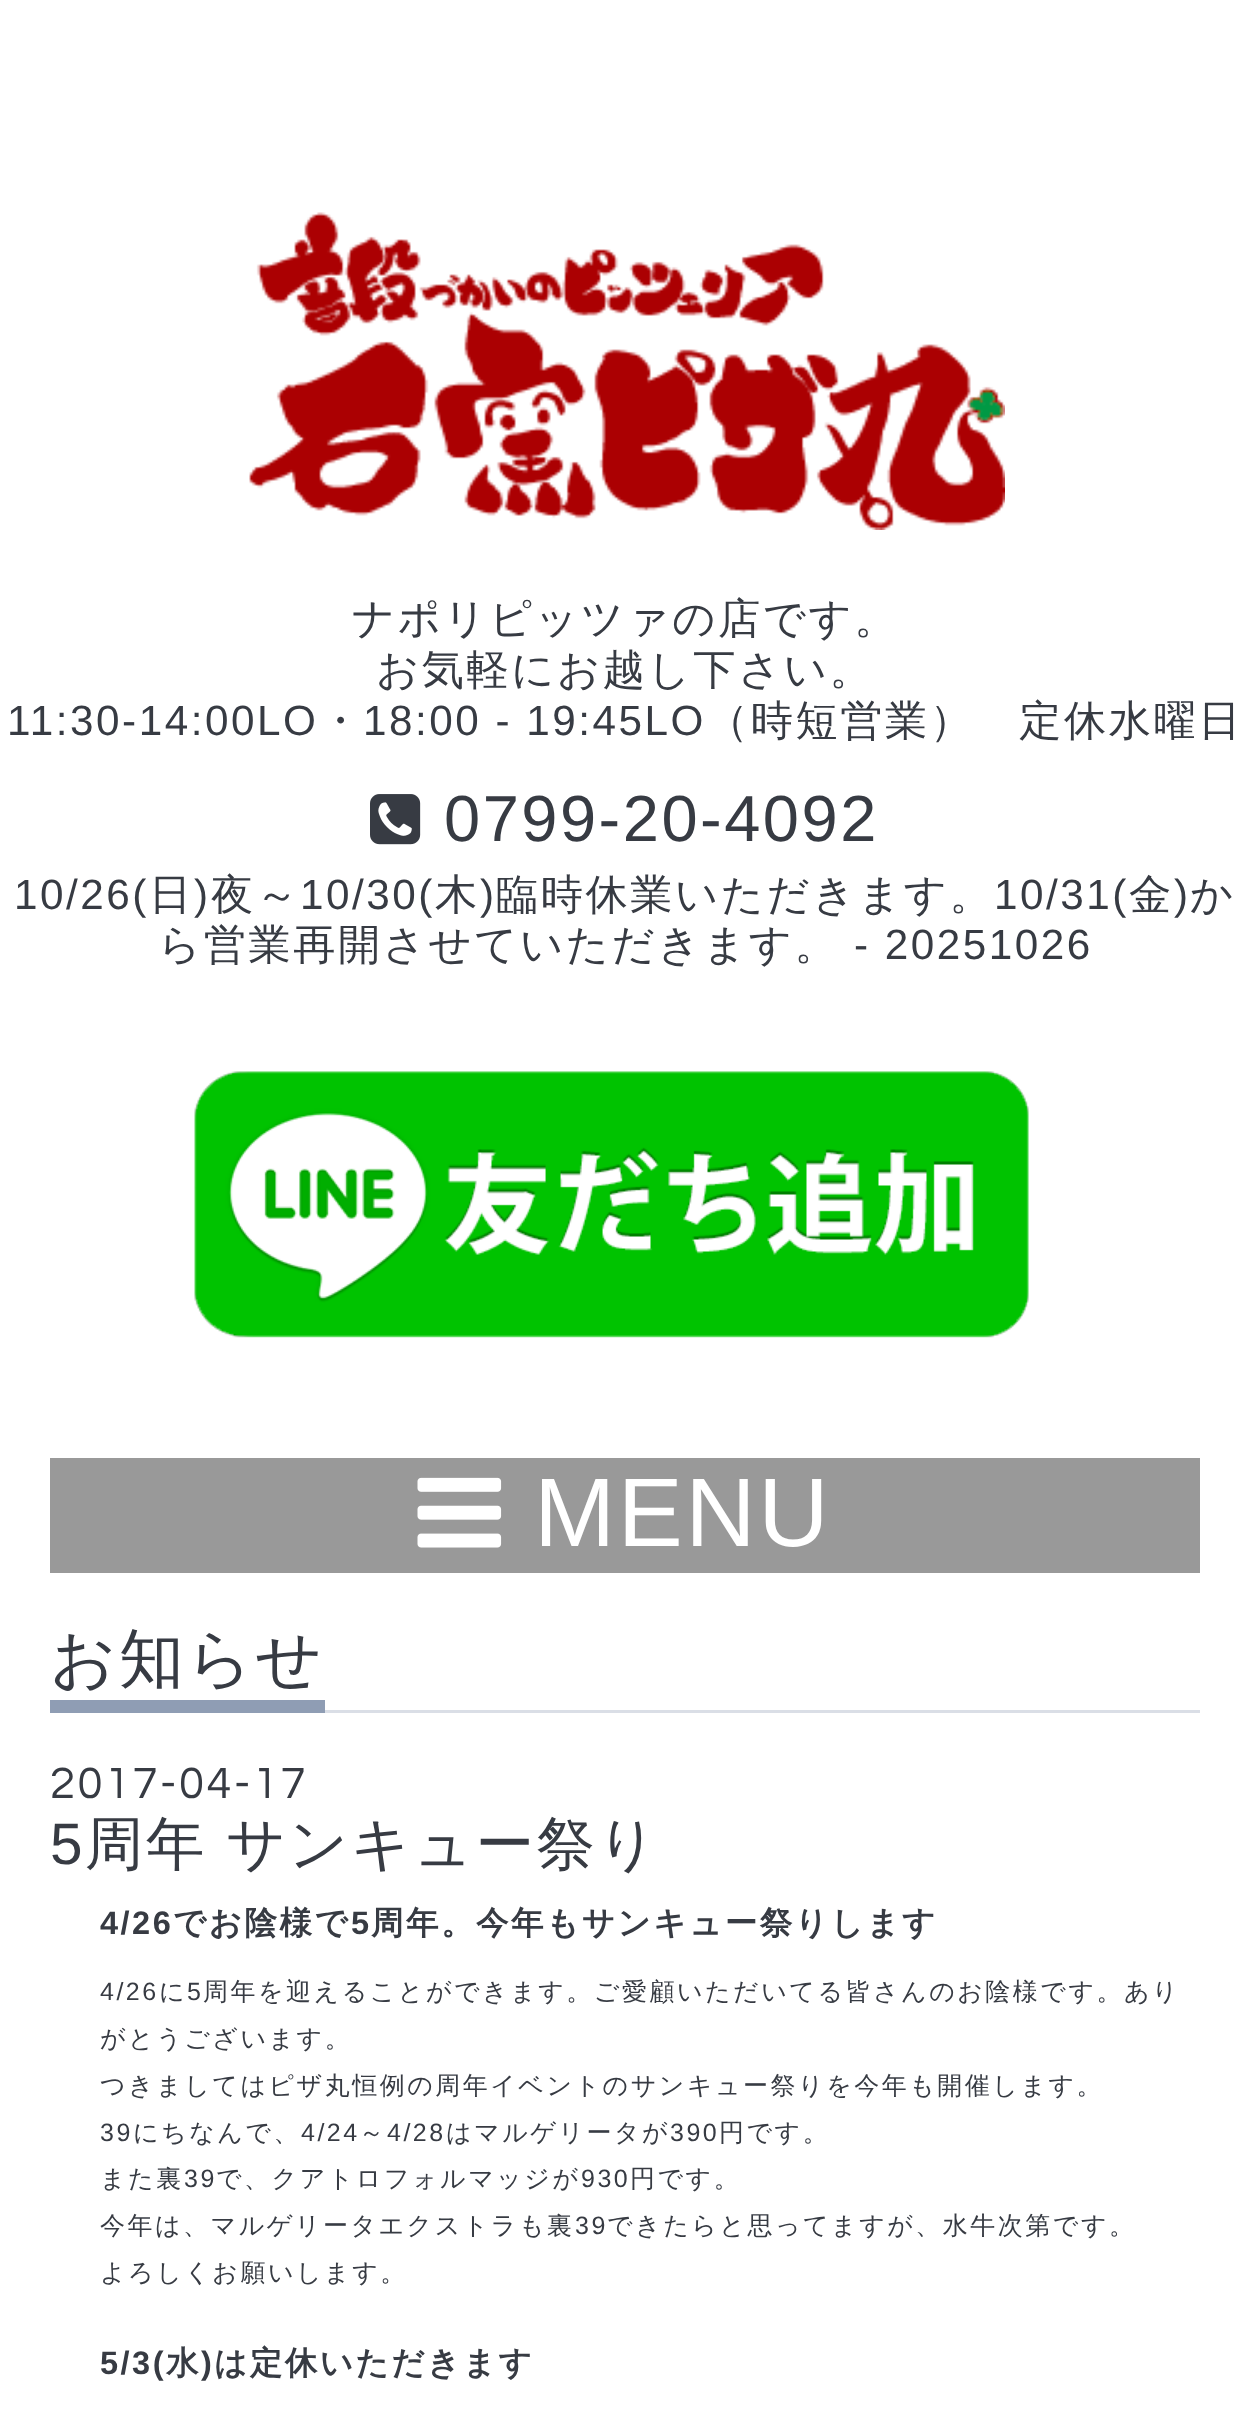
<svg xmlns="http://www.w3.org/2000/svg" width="1250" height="2423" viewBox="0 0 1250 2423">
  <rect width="100%" height="100%" fill="rgb(255,255,255)"/>
  <image x="249" y="212" width="756" height="318" href="pic1.png"/>
  <g font-family="WenQuanYi Zen Hei" font-size="42.25" font-weight="500" letter-spacing="2.5" fill="rgb(55,59,67)">
    <text x="352" y="633">ナポリピッツァの店です。</text>
    <text x="376" y="684">お気軽にお越し下さい。</text>
  </g>
  <text x="7" y="735" font-family="Liberation Sans" font-size="42.25" letter-spacing="2.5" fill="rgb(55,59,67)">11:30-14:00LO</text>
  <text x="319" y="735" font-family="WenQuanYi Zen Hei" font-size="42.25" font-weight="500" letter-spacing="2.5" fill="rgb(55,59,67)">・</text>
  <text x="363" y="735" font-family="Liberation Sans" font-size="42.25" letter-spacing="2.5" fill="rgb(55,59,67)">18:00 - 19:45LO</text>
  <text x="706" y="735" font-family="WenQuanYi Zen Hei" font-size="42.25" font-weight="500" letter-spacing="2.5" fill="rgb(55,59,67)">（時短営業）　定休水曜日</text>
  <image x="370" y="794" width="51" height="51" href="pic2.png"/>
  <text x="444" y="841" font-family="Liberation Sans" font-size="65" letter-spacing="2.5" fill="rgb(55,59,67)">0799-20-4092</text>
  <text x="14" y="909" font-family="Liberation Sans" font-size="42.25" letter-spacing="2.5" fill="rgb(55,59,67)">10/26(</text>
  <text x="149" y="909" font-family="WenQuanYi Zen Hei" font-size="42.25" font-weight="500" letter-spacing="2.5" fill="rgb(55,59,67)">日</text>
  <text x="194" y="909" font-family="Liberation Sans" font-size="42.25" letter-spacing="2.5" fill="rgb(55,59,67)">)</text>
  <text x="211" y="909" font-family="WenQuanYi Zen Hei" font-size="42.25" font-weight="500" letter-spacing="2.5" fill="rgb(55,59,67)">夜～</text>
  <text x="300" y="909" font-family="Liberation Sans" font-size="42.25" letter-spacing="2.5" fill="rgb(55,59,67)">10/30(</text>
  <text x="435" y="909" font-family="WenQuanYi Zen Hei" font-size="42.25" font-weight="500" letter-spacing="2.5" fill="rgb(55,59,67)">木</text>
  <text x="480" y="909" font-family="Liberation Sans" font-size="42.25" letter-spacing="2.5" fill="rgb(55,59,67)">)</text>
  <text x="496" y="909" font-family="WenQuanYi Zen Hei" font-size="42.25" font-weight="500" letter-spacing="2.5" fill="rgb(55,59,67)">臨時休業いただきます。</text>
  <text x="994" y="909" font-family="Liberation Sans" font-size="42.25" letter-spacing="2.5" fill="rgb(55,59,67)">10/31(</text>
  <text x="1129" y="909" font-family="WenQuanYi Zen Hei" font-size="42.25" font-weight="500" letter-spacing="2.5" fill="rgb(55,59,67)">金</text>
  <text x="1174" y="909" font-family="Liberation Sans" font-size="42.25" letter-spacing="2.5" fill="rgb(55,59,67)">)</text>
  <g font-family="WenQuanYi Zen Hei" font-size="42.25" font-weight="500" letter-spacing="2.5" fill="rgb(55,59,67)">
    <text x="1190" y="909">か</text>
    <text x="158" y="959">ら営業再開させていただきます。</text>
  </g>
  <text x="854" y="959" font-family="Liberation Sans" font-size="42.25" letter-spacing="2.5" fill="rgb(55,59,67)">- 20251026</text>
  <image x="194" y="1071" width="835" height="267" href="pic3.png"/>
  <rect x="50" y="1458" width="1150" height="115" fill="rgb(153,153,153)"/>
  <image x="417" y="1477" width="85" height="71" href="pic4.png"/>
  <text x="534" y="1546" font-family="Liberation Sans" font-size="97.5" letter-spacing="2.5" fill="rgb(255,255,255)">MENU</text>
  <rect x="325" y="1710" width="875" height="3" fill="rgb(218,222,230)"/>
  <rect x="50" y="1700" width="275" height="13" fill="rgb(143,157,180)"/>
  <text x="50" y="1681" font-family="WenQuanYi Zen Hei" font-size="65" font-weight="500" letter-spacing="2.5" fill="rgb(55,59,67)">お知らせ</text>
  <text x="50" y="1798" font-family="Questrial" font-size="45.5" letter-spacing="2.5" fill="rgb(55,59,67)">2017-04-17</text>
  <text x="50" y="1864" font-family="Liberation Sans" font-size="58.5" letter-spacing="2.5" fill="rgb(55,59,67)">5</text>
  <text x="85" y="1864" word-spacing="-1" font-family="WenQuanYi Zen Hei" font-size="58.5" font-weight="500" letter-spacing="2.5" fill="rgb(55,59,67)">周年 サンキュー祭り</text>
  <text x="100" y="1934" font-family="Liberation Sans" font-size="32.5" font-weight="bold" letter-spacing="2.5" fill="rgb(55,59,67)">4/26</text>
  <text x="173" y="1934" font-family="WenQuanYi Zen Hei" font-size="32.5" font-weight="bold" letter-spacing="2.5" fill="rgb(55,59,67)">でお陰様で</text>
  <text x="351" y="1934" font-family="Liberation Sans" font-size="32.5" font-weight="bold" letter-spacing="2.5" fill="rgb(55,59,67)">5</text>
  <text x="371" y="1934" font-family="WenQuanYi Zen Hei" font-size="32.5" font-weight="bold" letter-spacing="2.5" fill="rgb(55,59,67)">周年。今年もサンキュー祭りします</text>
  <text x="100" y="2000" font-family="Liberation Sans" font-size="25" letter-spacing="2.5" fill="rgb(55,59,67)">4/26</text>
  <text x="159" y="2000" font-family="WenQuanYi Zen Hei" font-size="25" font-weight="500" letter-spacing="2.5" fill="rgb(55,59,67)">に</text>
  <text x="187" y="2000" font-family="Liberation Sans" font-size="25" letter-spacing="2.5" fill="rgb(55,59,67)">5</text>
  <g font-family="WenQuanYi Zen Hei" font-size="25" font-weight="500" letter-spacing="2.5" fill="rgb(55,59,67)">
    <text x="203" y="2000">周年を迎えることができます。ご愛顧いただいてる皆さんのお陰様です。あり</text>
    <text>
      <tspan x="100" y="2047">がとうございます。</tspan>
      <tspan x="100" y="2094">つきましてはピザ丸恒例の周年イベントのサンキュー祭りを今年も開催します。</tspan>
    </text>
  </g>
  <text x="100" y="2141" font-family="Liberation Sans" font-size="25" letter-spacing="2.5" fill="rgb(55,59,67)">39</text>
  <text x="133" y="2141" font-family="WenQuanYi Zen Hei" font-size="25" font-weight="500" letter-spacing="2.5" fill="rgb(55,59,67)">にちなんで、</text>
  <text x="301" y="2141" font-family="Liberation Sans" font-size="25" letter-spacing="2.5" fill="rgb(55,59,67)">4/24</text>
  <text x="359" y="2141" font-family="WenQuanYi Zen Hei" font-size="25" font-weight="500" letter-spacing="2.5" fill="rgb(55,59,67)">～</text>
  <text x="387" y="2141" font-family="Liberation Sans" font-size="25" letter-spacing="2.5" fill="rgb(55,59,67)">4/28</text>
  <text x="446" y="2141" font-family="WenQuanYi Zen Hei" font-size="25" font-weight="500" letter-spacing="2.5" fill="rgb(55,59,67)">はマルゲリータが</text>
  <text x="670" y="2141" font-family="Liberation Sans" font-size="25" letter-spacing="2.5" fill="rgb(55,59,67)">390</text>
  <g font-family="WenQuanYi Zen Hei" font-size="25" font-weight="500" letter-spacing="2.5" fill="rgb(55,59,67)">
    <text x="719" y="2141">円です。</text>
    <text x="100" y="2187">また裏</text>
  </g>
  <text x="184" y="2187" font-family="Liberation Sans" font-size="25" letter-spacing="2.5" fill="rgb(55,59,67)">39</text>
  <text x="216" y="2187" font-family="WenQuanYi Zen Hei" font-size="25" font-weight="500" letter-spacing="2.5" fill="rgb(55,59,67)">で、クアトロフォルマッジが</text>
  <text x="581" y="2187" font-family="Liberation Sans" font-size="25" letter-spacing="2.5" fill="rgb(55,59,67)">930</text>
  <g font-family="WenQuanYi Zen Hei" font-size="25" font-weight="500" letter-spacing="2.5" fill="rgb(55,59,67)">
    <text x="630" y="2187">円です。</text>
    <text x="100" y="2234">今年は、マルゲリータエクストラも裏</text>
  </g>
  <text x="575" y="2234" font-family="Liberation Sans" font-size="25" letter-spacing="2.5" fill="rgb(55,59,67)">39</text>
  <g font-family="WenQuanYi Zen Hei" font-size="25" font-weight="500" letter-spacing="2.5" fill="rgb(55,59,67)">
    <text x="607" y="2234">できたらと思ってますが、水牛次第です。</text>
    <text x="100" y="2281">よろしくお願いします。</text>
  </g>
  <text x="100" y="2374" font-family="Liberation Sans" font-size="32.5" font-weight="bold" letter-spacing="2.5" fill="rgb(55,59,67)">5/3(</text>
  <text x="166" y="2374" font-family="WenQuanYi Zen Hei" font-size="32.5" font-weight="bold" letter-spacing="2.5" fill="rgb(55,59,67)">水</text>
  <text x="201" y="2374" font-family="Liberation Sans" font-size="32.5" font-weight="bold" letter-spacing="2.5" fill="rgb(55,59,67)">)</text>
  <text x="214" y="2374" font-family="WenQuanYi Zen Hei" font-size="32.5" font-weight="bold" letter-spacing="2.5" fill="rgb(55,59,67)">は定休いただきます</text>
</svg>
